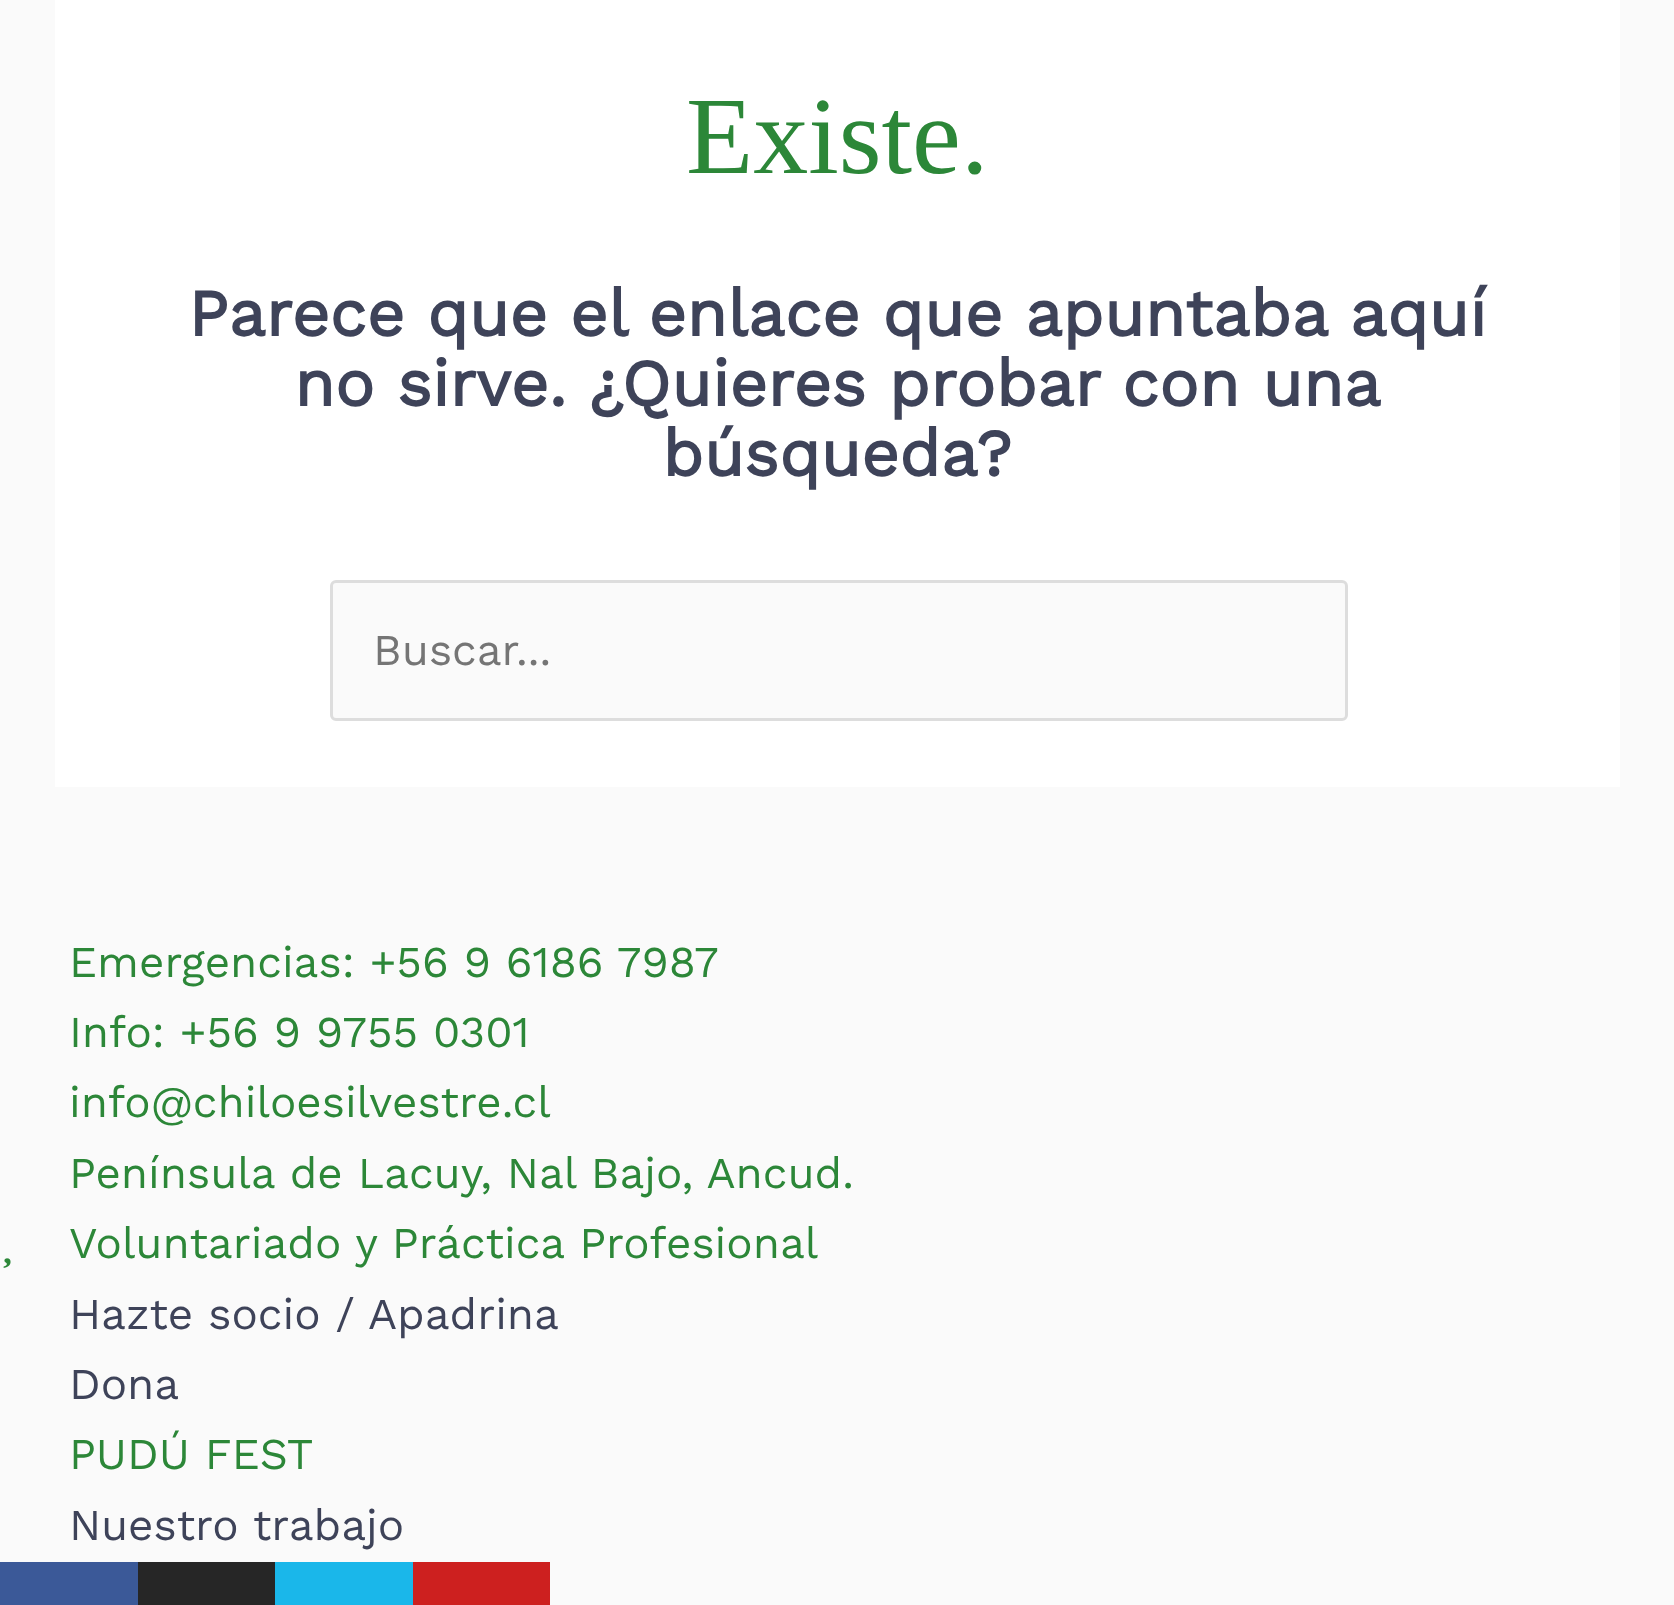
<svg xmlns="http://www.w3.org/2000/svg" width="1674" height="1605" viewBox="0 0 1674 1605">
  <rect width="100%" height="100%" fill="rgb(250,250,250)"/>
  <rect x="55" y="0" width="1565" height="787" fill="rgb(255,255,255)"/>
  <text x="686" y="173" font-family="Liberation Serif" font-size="110" fill="rgb(44,135,56)">Existe.</text>
  <g font-family="Work Sans" font-size="66" font-weight="bold" fill="rgb(62,67,89)">
    <text x="188" y="336">Parece que el enlace que apuntaba aquí</text>
    <text x="294" y="406">no sirve. ¿Quieres probar con una</text>
    <text x="662" y="476">búsqueda?</text>
  </g>
  <rect x="331.5" y="581.5" width="1015" height="138" rx="4.5" fill="rgb(250,250,250)" stroke="rgb(221,221,221)" stroke-width="3"/>
  <text x="373" y="665" font-family="Work Sans" font-size="44" fill="rgb(117,117,117)">Buscar...</text>
  <g font-family="Work Sans" font-size="44" fill="rgb(44,135,56)">
    <text>
      <tspan x="69" y="977">Emergencias: +56 9 6186 7987</tspan>
      <tspan x="69" y="1047">Info: +56 9 9755 0301</tspan>
      <tspan x="69" y="1117">info@chiloesilvestre.cl</tspan>
      <tspan x="69" y="1188">Península de Lacuy, Nal Bajo, Ancud.</tspan>
    </text>
  </g>
  <image x="3" y="1258" width="8" height="10" href="pic1.png"/>
  <text x="69" y="1258" font-family="Work Sans" font-size="44" fill="rgb(44,135,56)">Voluntariado y Práctica Profesional</text>
  <g font-family="Work Sans" font-size="44" fill="rgb(62,67,89)">
    <text>
      <tspan x="69" y="1329">Hazte socio / Apadrina</tspan>
      <tspan x="69" y="1399">Dona</tspan>
    </text>
  </g>
  <text x="69" y="1469" font-family="Work Sans" font-size="44" fill="rgb(44,135,56)">PUDÚ FEST</text>
  <text x="69" y="1540" font-family="Work Sans" font-size="44" fill="rgb(62,67,89)">Nuestro trabajo</text>
  <rect x="0" y="1562" width="138" height="43" fill="rgb(59,89,152)"/>
  <rect x="138" y="1562" width="137" height="43" fill="rgb(38,38,38)"/>
  <rect x="275" y="1562" width="138" height="43" fill="rgb(26,183,234)"/>
  <rect x="413" y="1562" width="137" height="43" fill="rgb(205,32,31)"/>
</svg>
